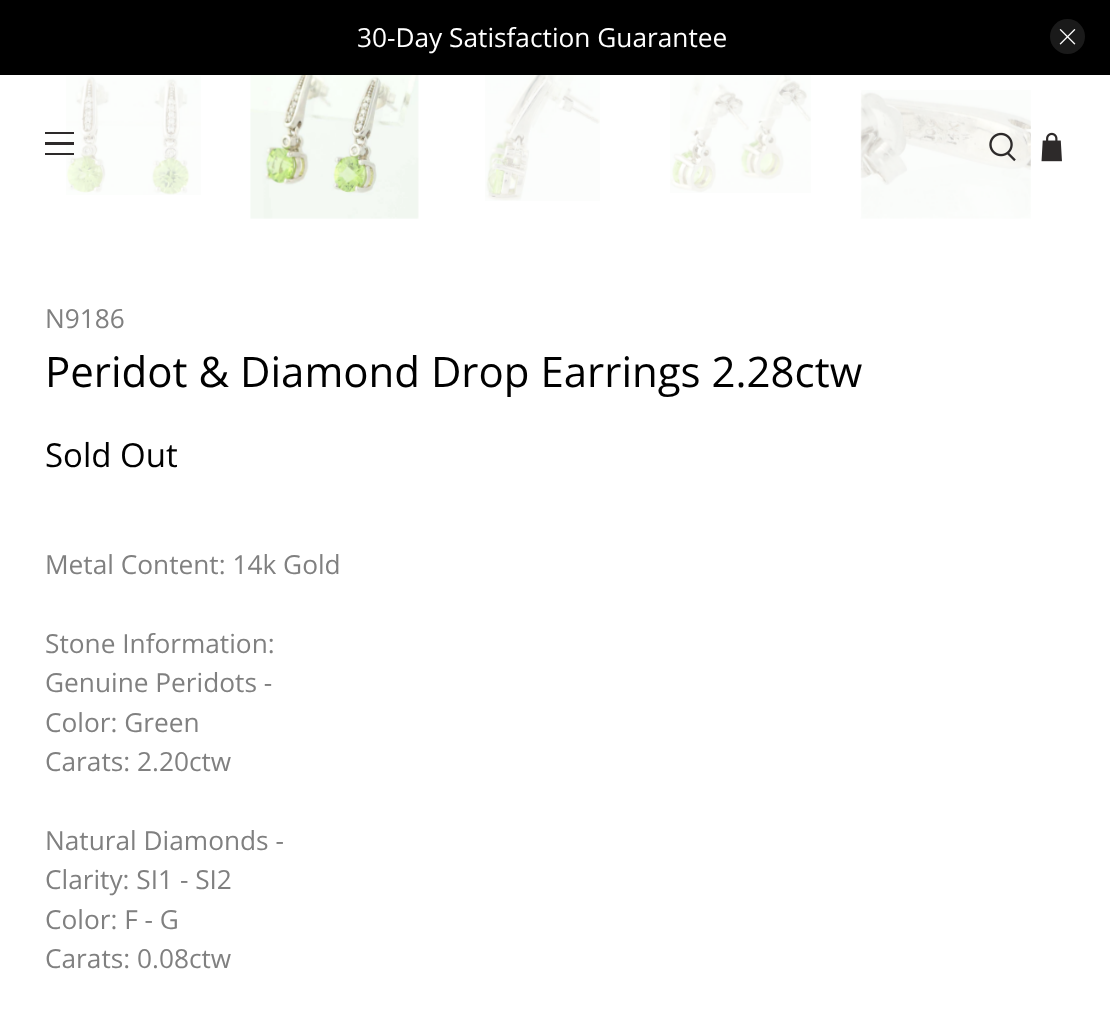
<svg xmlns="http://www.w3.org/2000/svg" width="1110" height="1028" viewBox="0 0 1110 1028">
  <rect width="100%" height="100%" fill="rgb(255,255,255)"/>
  <rect x="0" y="0" width="1110" height="75" fill="rgb(0,0,0)"/>
  <text x="357" y="47" font-family="Open Sans" font-size="26.25" fill="rgb(255,255,255)">30-Day Satisfaction Guarantee</text>
  <circle cx="1067.5" cy="36.5" r="17.5" fill="rgb(26,26,26)"/>
  <image x="1059" y="29" width="17" height="16" href="pic1.png"/>
  <image x="66" y="76" width="135" height="119" href="pic4.png"/>
  <rect x="45" y="132" width="29" height="2" fill="rgb(45,42,42)"/>
  <rect x="45" y="142" width="29" height="3" fill="rgb(45,42,42)"/>
  <rect x="45" y="153" width="29" height="2" fill="rgb(45,42,42)"/>
  <image x="860" y="90" width="171" height="129" href="pic8.png"/>
  <image x="989" y="132" width="27" height="30" href="pic2.png"/>
  <image x="1041" y="132" width="21" height="30" href="pic3.png"/>
  <image x="250" y="75" width="169" height="144" href="pic5.png"/>
  <image x="485" y="75" width="115" height="126" href="pic6.png"/>
  <image x="670" y="75" width="141" height="118" href="pic7.png"/>
  <text x="45" y="328" font-family="Open Sans" font-size="26.25" fill="rgb(128,128,128)">N9186</text>
  <text x="45" y="387" font-family="Open Sans" font-size="42" fill="rgb(0,0,0)">Peridot &amp; Diamond Drop Earrings 2.28ctw</text>
  <text x="45" y="467" font-family="Open Sans" font-size="33" fill="rgb(0,0,0)">Sold Out</text>
  <g font-family="Open Sans" font-size="26.25" fill="rgb(128,128,128)">
    <text x="45" y="574">Metal Content: 14k Gold</text>
    <text>
      <tspan x="45" y="653">Stone Information:</tspan>
      <tspan x="45" y="692">Genuine Peridots -</tspan>
      <tspan x="45" y="732">Color: Green</tspan>
      <tspan x="45" y="771">Carats: 2.20ctw</tspan>
    </text>
    <text>
      <tspan x="45" y="850">Natural Diamonds -</tspan>
      <tspan x="45" y="889">Clarity: SI1 - SI2</tspan>
      <tspan x="45" y="929">Color: F - G</tspan>
      <tspan x="45" y="968">Carats: 0.08ctw</tspan>
    </text>
  </g>
</svg>
